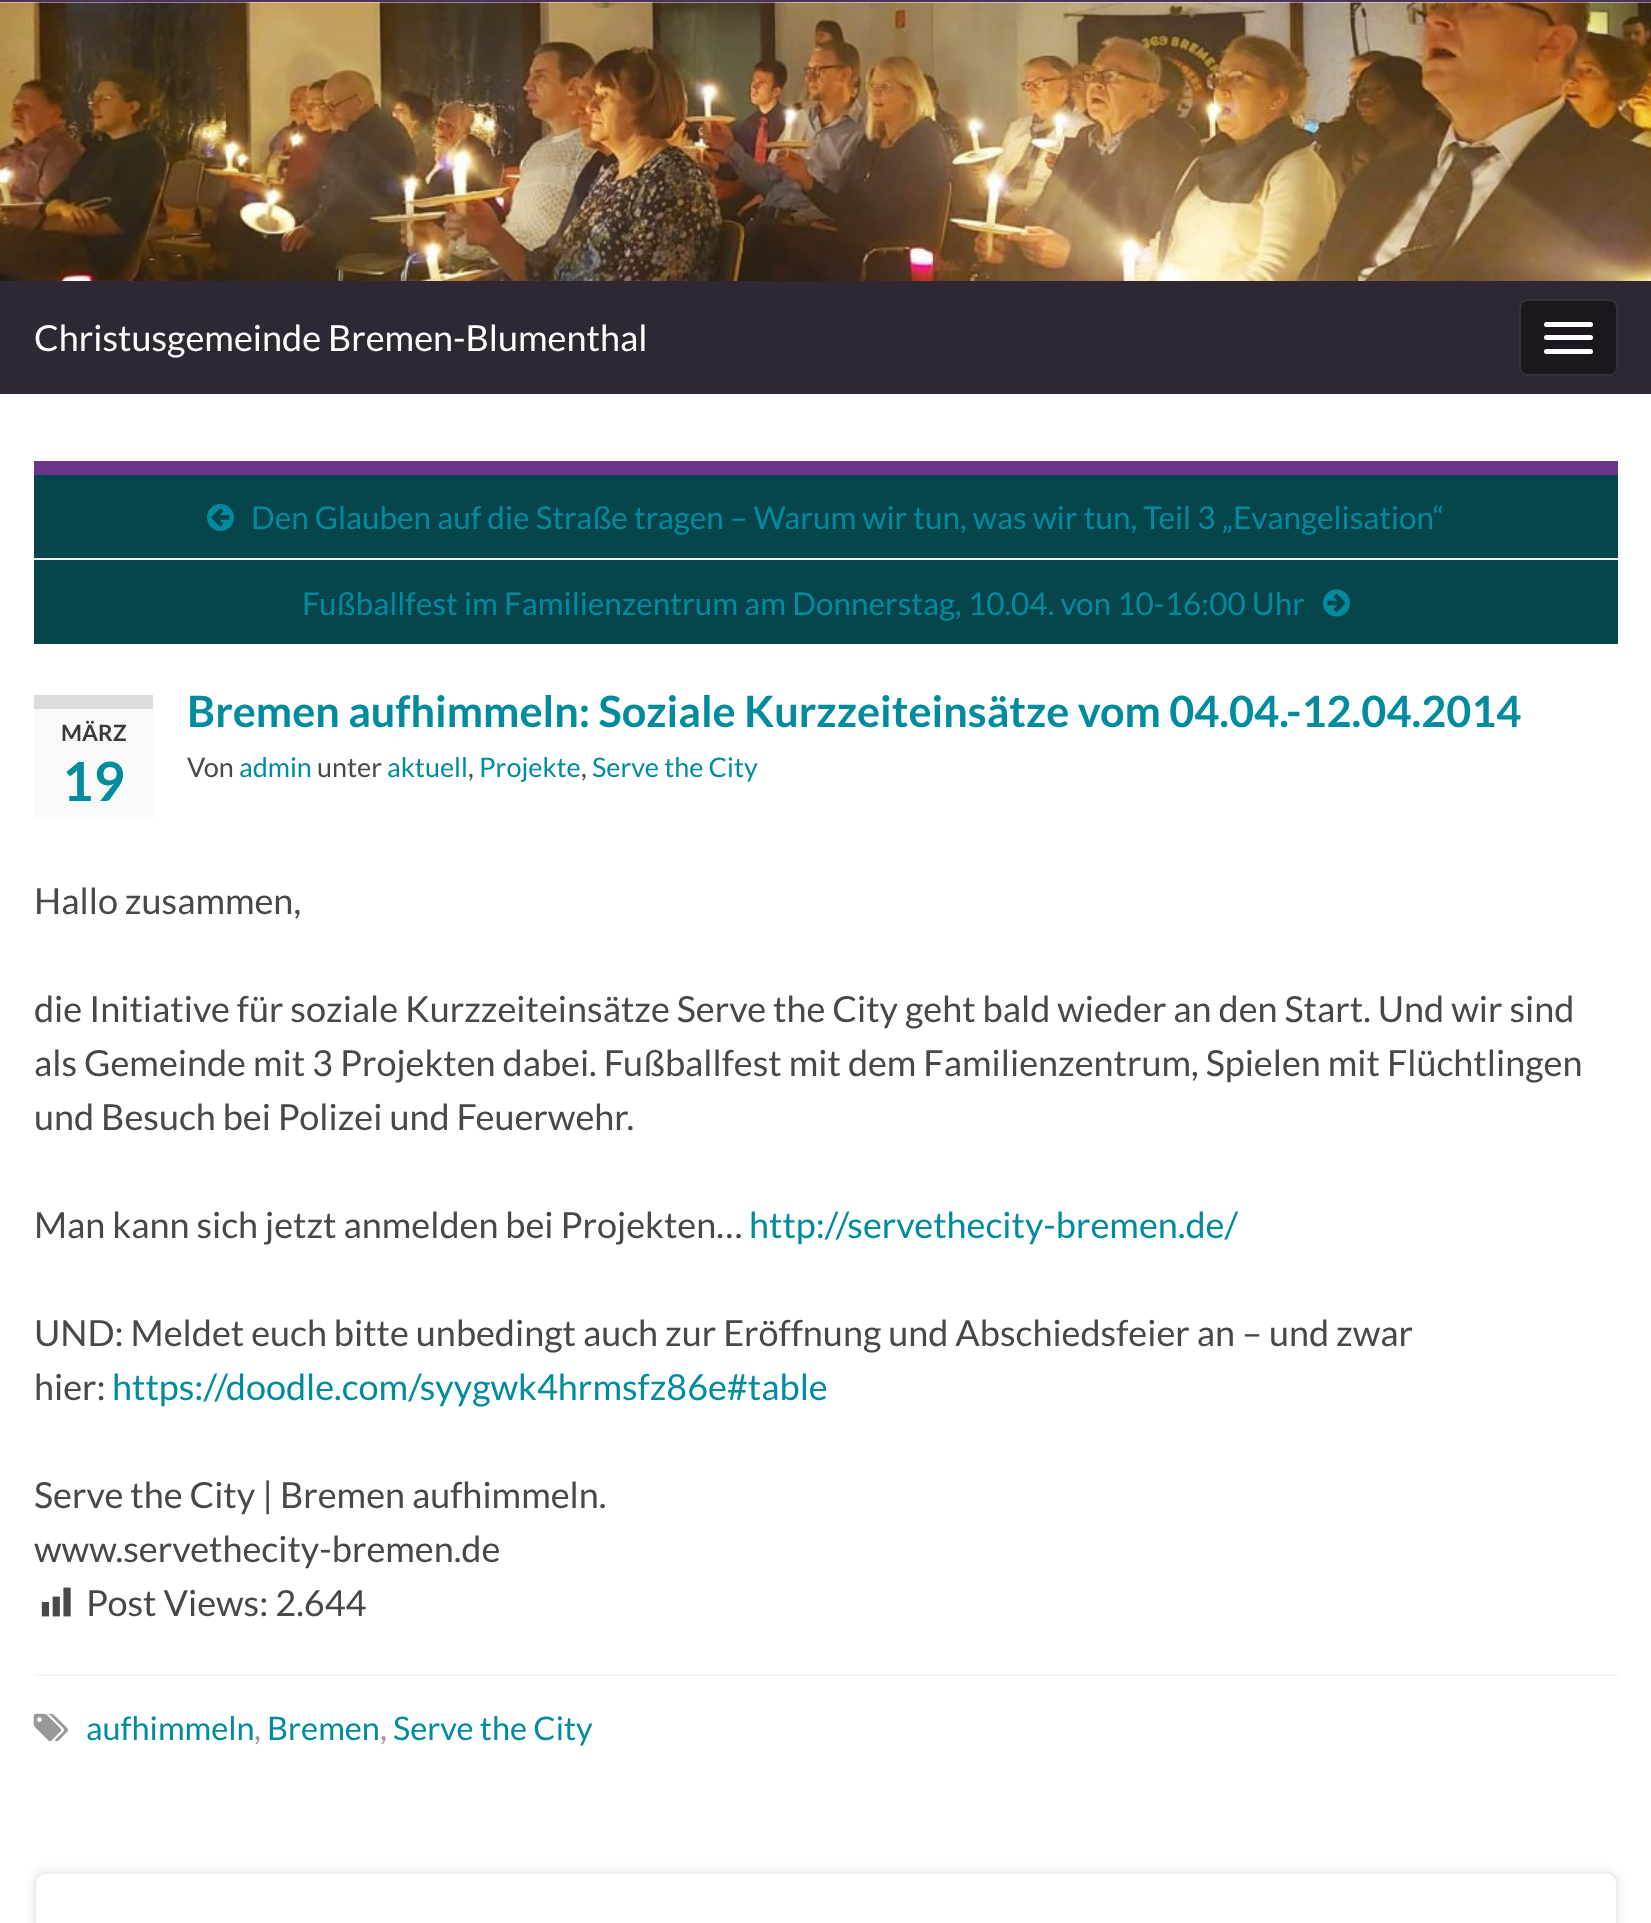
<svg xmlns="http://www.w3.org/2000/svg" width="1651" height="1923" viewBox="0 0 1651 1923">
  <rect width="100%" height="100%" fill="rgb(76,49,90)"/>
  <rect x="0" y="2" width="1651" height="1" fill="rgb(255,255,255)"/>
  <image x="0" y="2" width="1651" height="279" href="pic1.png"/>
  <rect x="0" y="281" width="1651" height="113" fill="rgb(47,39,51)"/>
  <text x="34" y="351" font-family="Lato" font-size="36" fill="rgb(255,255,255)">Christusgemeinde Bremen-Blumenthal</text>
  <rect x="1520" y="300" width="97" height="75" rx="8" fill="rgb(28,23,31)" stroke="rgb(51,51,51)" stroke-width="2"/>
  <rect x="1544" y="322" width="49" height="5" rx="2.5" fill="rgb(255,255,255)"/>
  <rect x="1544" y="335" width="49" height="5" rx="2.5" fill="rgb(255,255,255)"/>
  <rect x="1544" y="349" width="49" height="5" rx="2.5" fill="rgb(255,255,255)"/>
  <rect x="0" y="394" width="1651" height="1529" fill="rgb(255,255,255)"/>
  <rect x="34" y="475" width="1584" height="169" fill="rgb(6,69,76)"/>
  <rect x="34" y="461" width="1584" height="14" fill="rgb(107,53,137)"/>
  <image x="207" y="504" width="27" height="27" href="pic2.png"/>
  <text x="251" y="529" font-family="Lato" font-size="31.5" fill="rgb(0,140,158)">Den Glauben auf die Straße tragen – Warum wir tun, was wir tun, Teil 3 „Evangelisation“</text>
  <rect x="34" y="558" width="1584" height="2" fill="rgb(238,238,238)"/>
  <text x="302" y="615" font-family="Lato" font-size="31.5" fill="rgb(0,140,158)">Fußballfest im Familienzentrum am Donnerstag, 10.04. von 10-16:00 Uhr</text>
  <image x="1323" y="589" width="27" height="28" href="pic3.png"/>
  <text x="187" y="727" font-family="Lato" font-size="43.2" font-weight="bold" fill="rgb(0,140,158)">Bremen aufhimmeln: Soziale Kurzzeiteinsätze vom 04.04.-12.04.2014</text>
  <rect x="34" y="709" width="119" height="110" fill="rgb(249,249,249)"/>
  <rect x="34" y="695" width="119" height="14" fill="rgb(219,219,219)"/>
  <text x="61" y="741" font-family="Lato" font-size="22.5" font-weight="bold" fill="rgb(59,56,61)">MÄRZ</text>
  <text x="62" y="801" font-family="Lato" font-size="54" font-weight="bold" fill="rgb(0,140,158)">19</text>
  <text x="187" y="777" font-family="Lato" font-size="27" fill="rgb(74,71,75)">Von</text>
  <text x="239" y="777" font-family="Lato" font-size="27" fill="rgb(0,140,158)">admin</text>
  <text x="317" y="777" font-family="Lato" font-size="27" fill="rgb(74,71,75)">unter</text>
  <text x="387" y="777" font-family="Lato" font-size="27" fill="rgb(0,140,158)">aktuell</text>
  <text x="468" y="777" font-family="Lato" font-size="27" fill="rgb(74,71,75)">,</text>
  <text x="479" y="777" font-family="Lato" font-size="27" fill="rgb(0,140,158)">Projekte</text>
  <text x="581" y="777" font-family="Lato" font-size="27" fill="rgb(74,71,75)">,</text>
  <text x="592" y="777" font-family="Lato" font-size="27" fill="rgb(0,140,158)">Serve the City</text>
  <g font-family="Lato" font-size="36" fill="rgb(74,71,75)">
    <text x="34" y="914">Hallo zusammen,</text>
    <text>
      <tspan x="34" y="1022">die Initiative für soziale Kurzzeiteinsätze Serve the City geht bald wieder an den Start. Und wir sind</tspan>
      <tspan x="34" y="1076">als Gemeinde mit 3 Projekten dabei. Fußballfest mit dem Familienzentrum, Spielen mit Flüchtlingen</tspan>
      <tspan x="34" y="1130">und Besuch bei Polizei und Feuerwehr.</tspan>
    </text>
    <text x="34" y="1238">Man kann sich jetzt anmelden bei Projekten…</text>
  </g>
  <text x="749" y="1238" font-family="Lato" font-size="36" fill="rgb(0,140,158)">http://servethecity-bremen.de/</text>
  <g font-family="Lato" font-size="36" fill="rgb(74,71,75)">
    <text>
      <tspan x="34" y="1346">UND: Meldet euch bitte unbedingt auch zur Eröffnung und Abschiedsfeier an – und zwar</tspan>
      <tspan x="34" y="1400">hier:</tspan>
    </text>
  </g>
  <text x="112" y="1400" font-family="Lato" font-size="36" fill="rgb(0,140,158)">https://doodle.com/syygwk4hrmsfz86e#table</text>
  <g font-family="Lato" font-size="36" fill="rgb(74,71,75)">
    <text>
      <tspan x="34" y="1508">Serve the City | Bremen aufhimmeln.</tspan>
      <tspan x="34" y="1562">www.servethecity-bremen.de</tspan>
    </text>
  </g>
  <image x="41" y="1587" width="30" height="30" href="pic4.png"/>
  <text x="86" y="1616" font-family="Lato" font-size="36" fill="rgb(74,71,75)">Post Views: 2.644</text>
  <rect x="34" y="1674" width="1584" height="2" fill="rgb(245,245,245)"/>
  <image x="33" y="1713" width="35" height="29" href="pic5.png"/>
  <text x="86" y="1740" font-family="Lato" font-size="32.5" fill="rgb(0,140,158)">aufhimmeln</text>
  <text x="254" y="1740" font-family="Lato" font-size="32.5" fill="rgb(152,152,152)">,</text>
  <text x="267" y="1740" font-family="Lato" font-size="32.5" fill="rgb(0,140,158)">Bremen</text>
  <text x="380" y="1740" font-family="Lato" font-size="32.5" fill="rgb(152,152,152)">,</text>
  <text x="393" y="1740" font-family="Lato" font-size="32.5" fill="rgb(0,140,158)">Serve the City</text>
  <rect x="34" y="1872" width="1584" height="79" rx="11" fill="rgba(0,0,0,0.1)" filter="blur(5.5px)"/>
  <rect x="35" y="1873" width="1582" height="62" rx="10" fill="rgb(255,255,255)" stroke="rgb(235,237,240)" stroke-width="2"/>
</svg>
